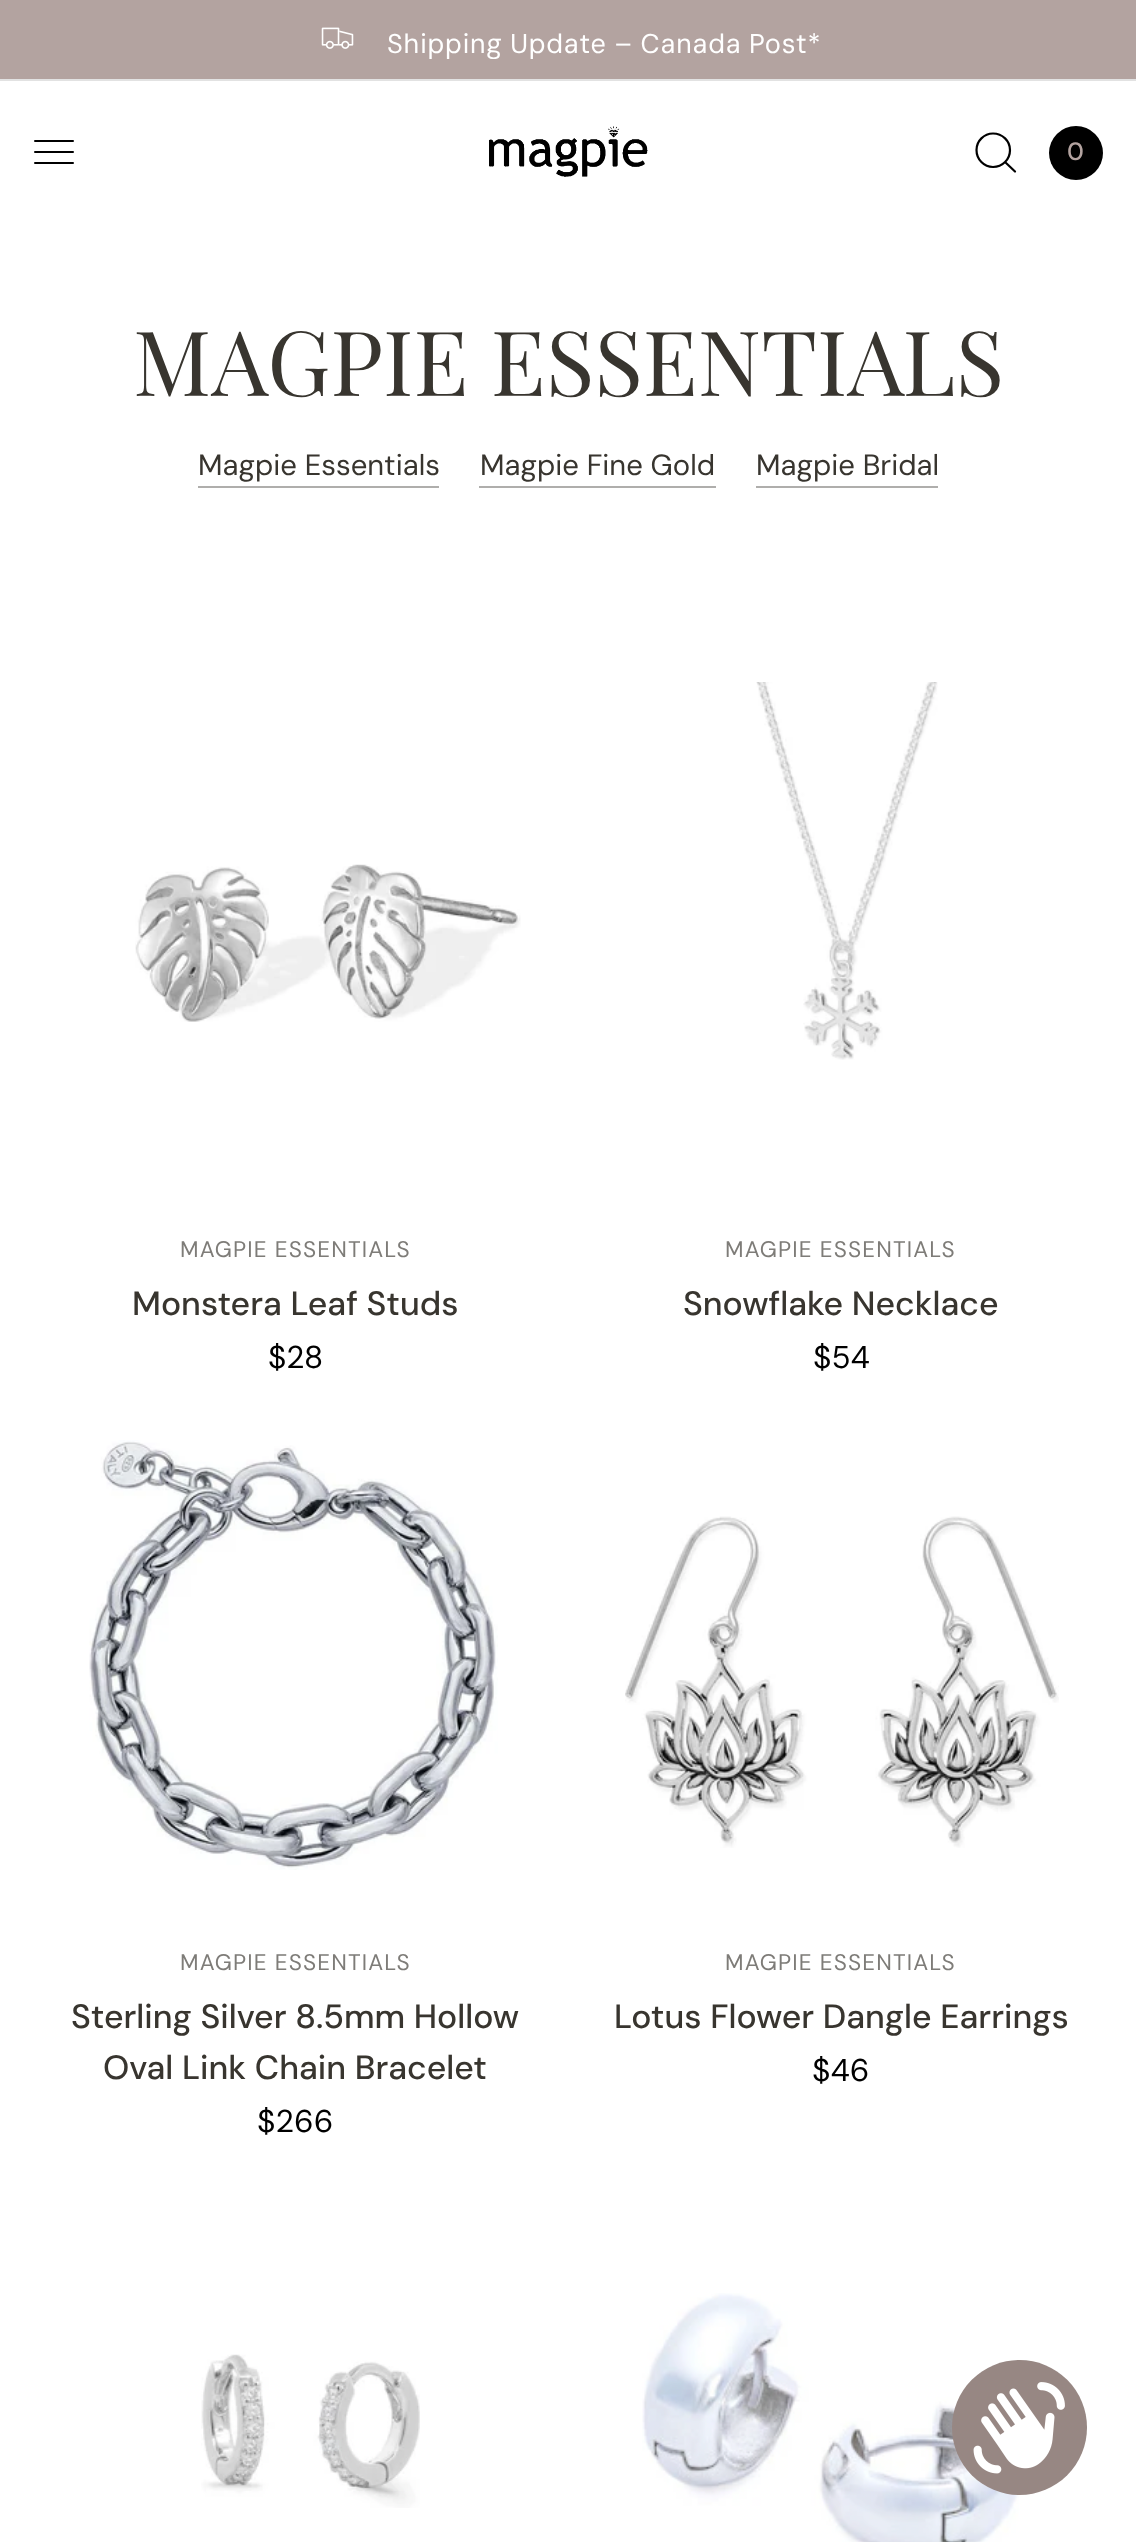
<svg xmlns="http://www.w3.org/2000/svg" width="1136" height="2542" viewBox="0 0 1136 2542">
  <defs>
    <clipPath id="clip1"><rect x="79" y="23" width="979" height="36"/></clipPath>
  </defs>
  <rect width="100%" height="100%" fill="rgb(255,255,255)"/>
  <rect x="0" y="0" width="1136" height="79" fill="rgb(179,163,160)"/>
  <rect x="0" y="79" width="1136" height="2" fill="rgb(226,226,226)"/>
  <image x="321" y="27" width="33" height="22" href="pic1.png"/>
  <g clip-path="url(#clip1)">
    <text x="387" y="53" word-spacing="-0.5" font-family="DM Sans" font-size="27" letter-spacing="0.8" fill="rgb(255,255,255)">Shipping Update – Canada Post*</text>
  </g>
  <rect x="34" y="140" width="40" height="2" rx="1" fill="rgb(0,0,0)"/>
  <rect x="34" y="151" width="40" height="2" rx="1" fill="rgb(0,0,0)"/>
  <rect x="34" y="162" width="40" height="2" rx="1" fill="rgb(0,0,0)"/>
  <image x="489" y="126" width="159" height="51" href="pic2.png"/>
  <path d="M1005 162L1015 171.5M1010 150C1010 159.5 1002.5 167 993 167C984 167 976.5 159.5 976.5 150C976.5 141 984 133.5 993 133.5C1002.5 133.5 1010 141 1010 150Z" fill="none" stroke="rgb(0,0,0)" stroke-width="2.2" stroke-linecap="round" stroke-linejoin="round"/>
  <circle cx="1076" cy="153" r="27" fill="rgb(0,0,0)"/>
  <text x="1067" y="160" font-family="'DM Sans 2'" font-size="25" font-weight="500" fill="rgb(179,163,160)">0</text>
  <text x="133" y="396" font-family="Playfair Display" font-size="90" fill="rgb(56,53,47)">MAGPIE ESSENTIALS</text>
  <text x="198" y="475" font-family="'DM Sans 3'" font-size="29.25" fill="rgb(56,53,47)">Magpie Essentials</text>
  <rect x="198" y="486" width="241" height="2" fill="rgb(175,174,172)"/>
  <text x="480" y="475" font-family="'DM Sans 3'" font-size="29.25" fill="rgb(56,53,47)">Magpie Fine Gold</text>
  <rect x="479" y="486" width="237" height="2" fill="rgb(175,174,172)"/>
  <text x="756" y="475" font-family="'DM Sans 3'" font-size="29.25" fill="rgb(56,53,47)">Magpie Bridal</text>
  <rect x="756" y="486" width="182" height="2" fill="rgb(175,174,172)"/>
  <image x="135" y="864" width="386" height="158" href="pic3.png"/>
  <text x="180" y="1257" font-family="DM Sans" font-size="22.5" letter-spacing="1.1" fill="rgb(126,124,120)">MAGPIE ESSENTIALS</text>
  <text x="132" y="1315" font-family="DM Sans" font-size="33.75" font-weight="500" fill="rgb(56,53,47)">Monstera Leaf Studs</text>
  <text x="268" y="1368" font-family="'DM Sans 2'" font-size="31.5" fill="rgb(0,0,0)">$28</text>
  <image x="756" y="682" width="182" height="378" href="pic4.png"/>
  <text x="725" y="1257" font-family="DM Sans" font-size="22.5" letter-spacing="1.1" fill="rgb(126,124,120)">MAGPIE ESSENTIALS</text>
  <text x="683" y="1315" font-family="DM Sans" font-size="33.75" font-weight="500" fill="rgb(56,53,47)">Snowflake Necklace</text>
  <text x="813" y="1368" font-family="DM Sans" font-size="31.5" fill="rgb(0,0,0)">$54</text>
  <image x="89" y="1440" width="409" height="430" href="pic5.png"/>
  <text x="180" y="1970" font-family="DM Sans" font-size="22.5" letter-spacing="1.1" fill="rgb(126,124,120)">MAGPIE ESSENTIALS</text>
  <g font-family="DM Sans" font-size="33.75" font-weight="500" fill="rgb(56,53,47)">
    <text x="71" y="2028">Sterling Silver 8.5mm Hollow</text>
    <text x="103" y="2079">Oval Link Chain Bracelet</text>
  </g>
  <text x="257" y="2132" font-family="DM Sans" font-size="31.5" fill="rgb(0,0,0)">$266</text>
  <image x="625" y="1516" width="434" height="332" href="pic6.png"/>
  <text x="725" y="1970" font-family="DM Sans" font-size="22.5" letter-spacing="1.1" fill="rgb(126,124,120)">MAGPIE ESSENTIALS</text>
  <text x="614" y="2028" font-family="DM Sans" font-size="33.75" font-weight="500" fill="rgb(56,53,47)">Lotus Flower Dangle Earrings</text>
  <text x="812" y="2081" font-family="DM Sans" font-size="31.5" fill="rgb(0,0,0)">$46</text>
  <image x="201" y="2354" width="219" height="154" href="pic7.png"/>
  <image x="642" y="2293" width="377" height="249" href="pic8.png"/>
  <circle cx="1019.5" cy="2427.5" r="67.5" fill="rgb(151,135,131)"/>
  <image x="973" y="2382" width="92" height="92" href="pic9.png"/>
</svg>
